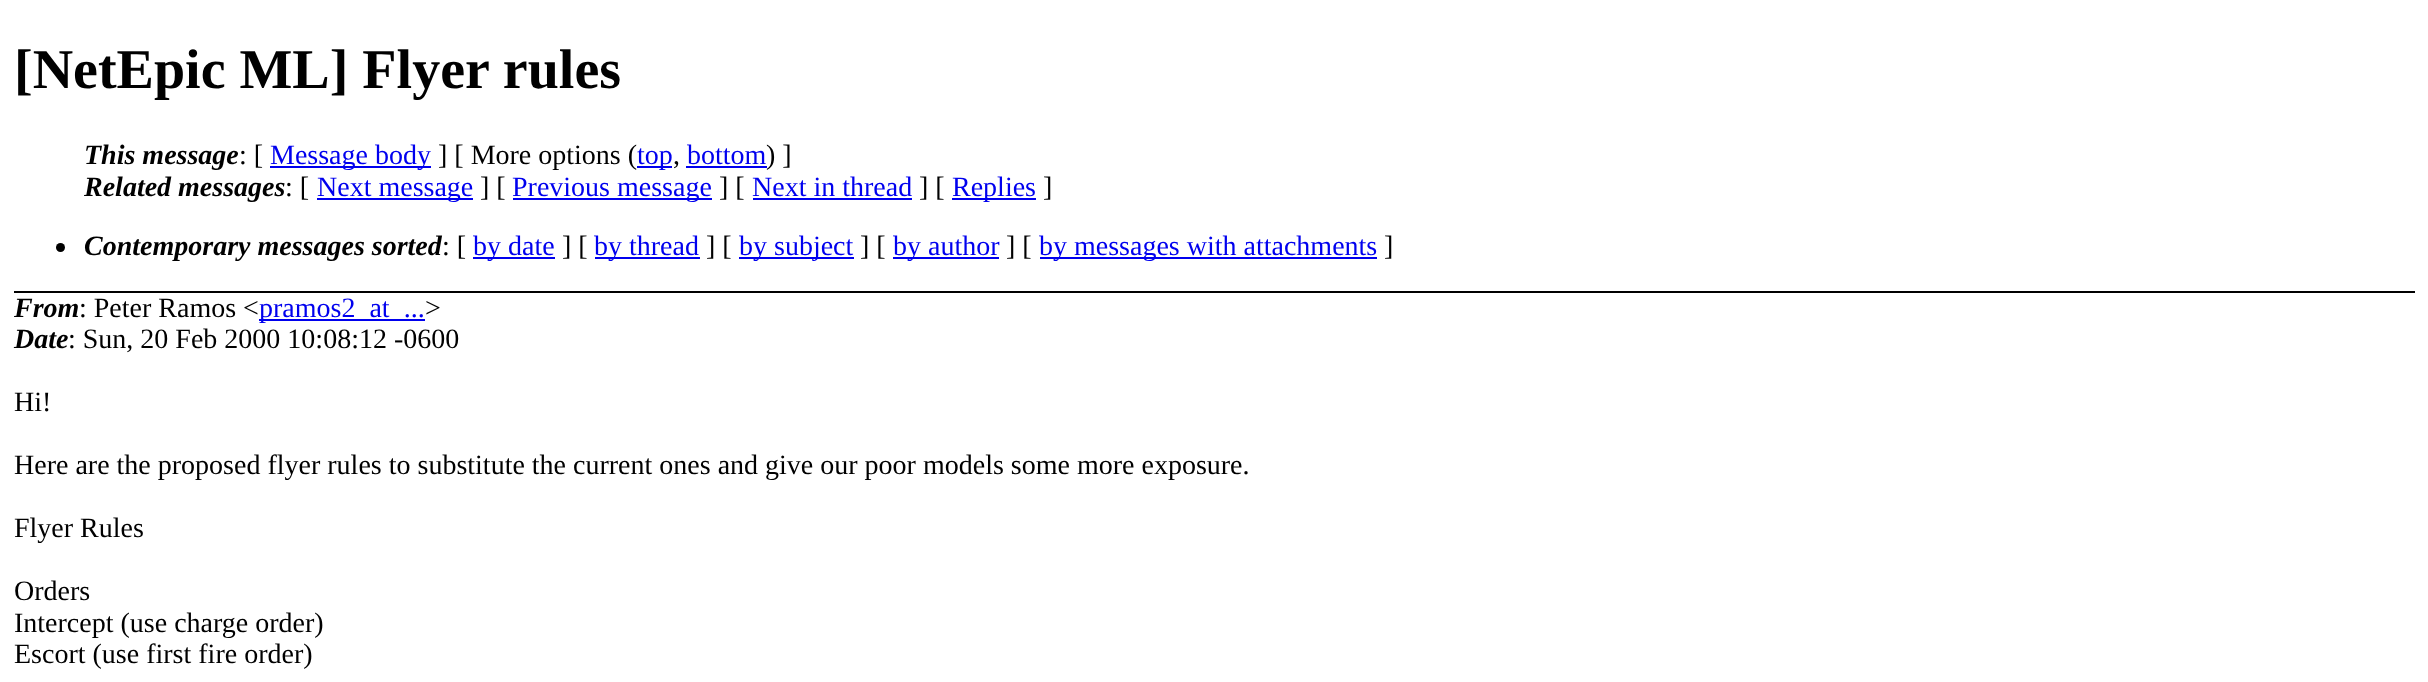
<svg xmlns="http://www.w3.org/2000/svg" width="2428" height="682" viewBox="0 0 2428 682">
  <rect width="100%" height="100%" fill="rgb(255,255,255)"/>
  <rect x="14" y="291" width="2401" height="2" fill="rgb(0,0,0)"/>
  <text x="14" y="88" font-family="Liberation Serif" font-size="56" font-weight="bold" fill="rgb(0,0,0)">[NetEpic ML] Flyer rules</text>
  <text x="84" y="164" font-family="Liberation Serif" font-size="28" font-weight="bold" font-style="italic" fill="rgb(0,0,0)">This message</text>
  <text x="239" y="164" font-family="Liberation Serif" font-size="28" fill="rgb(0,0,0)">: [</text>
  <rect x="270" y="166" width="161" height="2" fill="rgb(0,0,238)"/>
  <text x="270" y="164" font-family="Liberation Serif" font-size="28" fill="rgb(0,0,238)">Message body</text>
  <text x="438" y="164" font-family="Liberation Serif" font-size="28" fill="rgb(0,0,0)">] [ More options (</text>
  <rect x="637" y="166" width="35" height="2" fill="rgb(0,0,238)"/>
  <text x="637" y="164" font-family="Liberation Serif" font-size="28" fill="rgb(0,0,238)">top</text>
  <text x="673" y="164" font-family="Liberation Serif" font-size="28" fill="rgb(0,0,0)">,</text>
  <text x="687" y="164" font-family="Liberation Serif" font-size="28" fill="rgb(0,0,238)">bottom</text>
  <rect x="686" y="166" width="81" height="2" fill="rgb(0,0,238)"/>
  <text x="766" y="164" font-family="Liberation Serif" font-size="28" fill="rgb(0,0,0)">) ]</text>
  <text x="84" y="196" font-family="Liberation Serif" font-size="28" font-weight="bold" font-style="italic" fill="rgb(0,0,0)">Related messages</text>
  <text x="285" y="196" font-family="Liberation Serif" font-size="28" fill="rgb(0,0,0)">: [</text>
  <rect x="317" y="198" width="156" height="2" fill="rgb(0,0,238)"/>
  <text x="317" y="196" font-family="Liberation Serif" font-size="28" fill="rgb(0,0,238)">Next message</text>
  <text x="480" y="196" font-family="Liberation Serif" font-size="28" fill="rgb(0,0,0)">] [</text>
  <rect x="513" y="198" width="199" height="2" fill="rgb(0,0,238)"/>
  <text x="512" y="196" font-family="Liberation Serif" font-size="28" fill="rgb(0,0,238)">Previous message</text>
  <text x="719" y="196" font-family="Liberation Serif" font-size="28" fill="rgb(0,0,0)">] [</text>
  <text x="752" y="196" font-family="Liberation Serif" font-size="28" fill="rgb(0,0,238)">Next in thread</text>
  <rect x="753" y="198" width="159" height="2" fill="rgb(0,0,238)"/>
  <text x="919" y="196" font-family="Liberation Serif" font-size="28" fill="rgb(0,0,0)">] [</text>
  <rect x="952" y="198" width="84" height="2" fill="rgb(0,0,238)"/>
  <text x="952" y="196" font-family="Liberation Serif" font-size="28" fill="rgb(0,0,238)">Replies</text>
  <text x="1043" y="196" font-family="Liberation Serif" font-size="28" fill="rgb(0,0,0)">]</text>
  <circle cx="60.5" cy="247.5" r="4.5" fill="rgb(0,0,0)"/>
  <text x="84" y="255" font-family="Liberation Serif" font-size="28" font-weight="bold" font-style="italic" fill="rgb(0,0,0)">Contemporary messages sorted</text>
  <text x="442" y="255" font-family="Liberation Serif" font-size="28" fill="rgb(0,0,0)">: [</text>
  <rect x="473" y="257" width="82" height="2" fill="rgb(0,0,238)"/>
  <text x="473" y="255" font-family="Liberation Serif" font-size="28" fill="rgb(0,0,238)">by date</text>
  <text x="562" y="255" font-family="Liberation Serif" font-size="28" fill="rgb(0,0,0)">] [</text>
  <rect x="595" y="257" width="105" height="2" fill="rgb(0,0,238)"/>
  <text x="594" y="255" font-family="Liberation Serif" font-size="28" fill="rgb(0,0,238)">by thread</text>
  <text x="706" y="255" font-family="Liberation Serif" font-size="28" fill="rgb(0,0,0)">] [</text>
  <rect x="739" y="257" width="115" height="2" fill="rgb(0,0,238)"/>
  <text x="739" y="255" font-family="Liberation Serif" font-size="28" fill="rgb(0,0,238)">by subject</text>
  <text x="860" y="255" font-family="Liberation Serif" font-size="28" fill="rgb(0,0,0)">] [</text>
  <rect x="893" y="257" width="106" height="2" fill="rgb(0,0,238)"/>
  <text x="893" y="255" font-family="Liberation Serif" font-size="28" fill="rgb(0,0,238)">by author</text>
  <text x="1006" y="255" font-family="Liberation Serif" font-size="28" fill="rgb(0,0,0)">] [</text>
  <rect x="1040" y="257" width="337" height="2" fill="rgb(0,0,238)"/>
  <text x="1039" y="255" font-family="Liberation Serif" font-size="28" fill="rgb(0,0,238)">by messages with attachments</text>
  <text x="1384" y="255" font-family="Liberation Serif" font-size="28" fill="rgb(0,0,0)">]</text>
  <text x="14" y="317" font-family="Liberation Serif" font-size="28" font-weight="bold" font-style="italic" fill="rgb(0,0,0)">From</text>
  <text x="79" y="317" font-family="Liberation Serif" font-size="28" fill="rgb(0,0,0)">: Peter Ramos &lt;</text>
  <rect x="259" y="319" width="166" height="2" fill="rgb(0,0,238)"/>
  <text x="259" y="317" font-family="Liberation Serif" font-size="28" fill="rgb(0,0,238)">pramos2_at_...</text>
  <text x="425" y="317" font-family="Liberation Serif" font-size="28" fill="rgb(0,0,0)">&gt;</text>
  <text x="14" y="348" font-family="Liberation Serif" font-size="28" font-weight="bold" font-style="italic" fill="rgb(0,0,0)">Date</text>
  <g font-family="Liberation Serif" font-size="28" fill="rgb(0,0,0)">
    <text x="68" y="348">: Sun, 20 Feb 2000 10:08:12 -0600</text>
    <text x="14" y="411">Hi!</text>
    <text x="14" y="474">Here are the proposed flyer rules to substitute the current ones and give our poor models some more exposure.</text>
    <text x="14" y="537">Flyer Rules</text>
    <text>
      <tspan x="14" y="600">Orders</tspan>
      <tspan x="14" y="632">Intercept (use charge order)</tspan>
      <tspan x="14" y="663">Escort (use first fire order)</tspan>
    </text>
  </g>
</svg>
